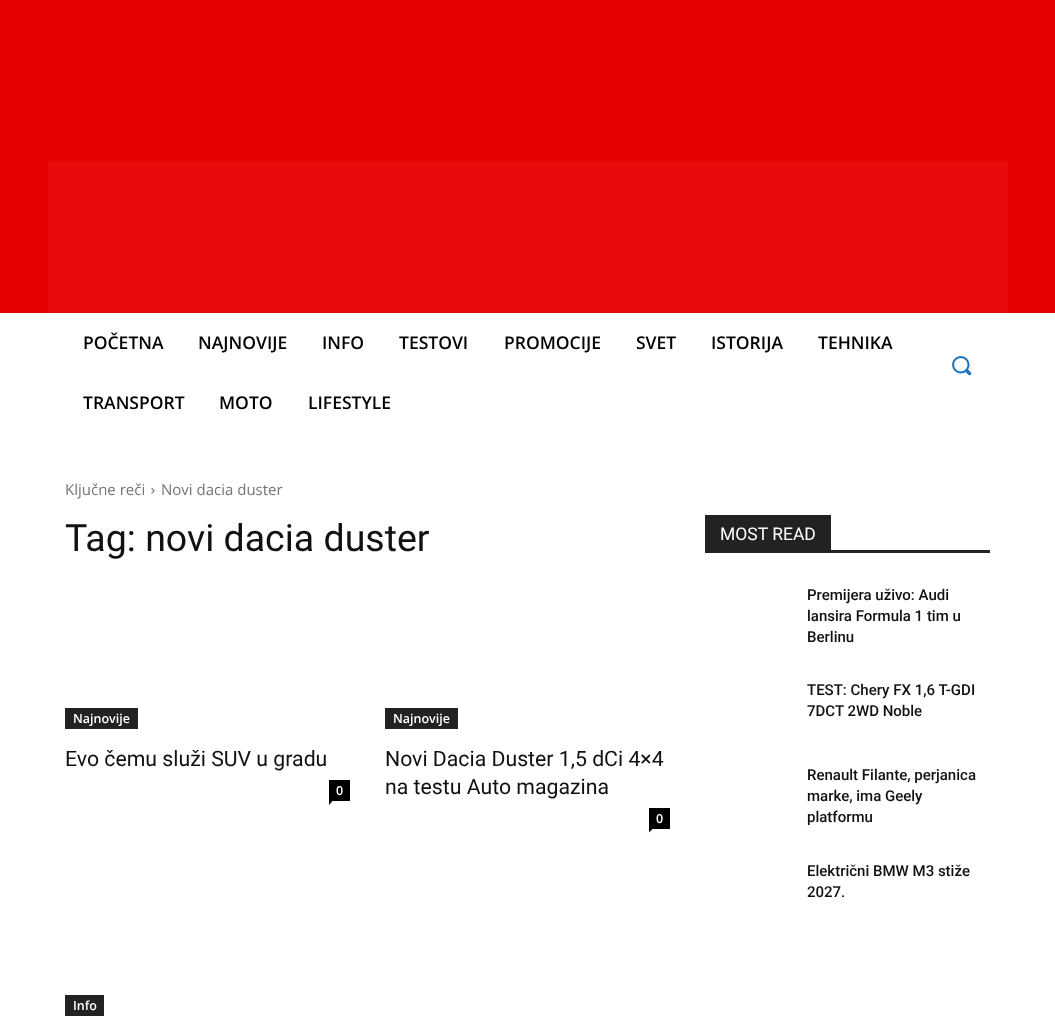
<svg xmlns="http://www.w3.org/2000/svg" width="1055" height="1031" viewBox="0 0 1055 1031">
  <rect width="100%" height="100%" fill="rgb(255,255,255)"/>
  <rect x="0" y="0" width="1055" height="313" fill="rgb(230,0,0)"/>
  <rect x="48" y="161" width="960" height="152" fill="rgb(231,10,10)"/>
  <image x="952" y="356" width="20" height="20" href="pic1.png"/>
  <g font-family="Open Sans" font-size="17.5" font-weight="600" fill="rgb(0,0,0)">
    <text x="83" y="349">POČETNA</text>
    <text x="198" y="349">NAJNOVIJE</text>
    <text x="322" y="349">INFO</text>
    <text x="399" y="349">TESTOVI</text>
    <text x="504" y="349">PROMOCIJE</text>
    <text x="636" y="349">SVET</text>
    <text x="711" y="349">ISTORIJA</text>
    <text x="818" y="349">TEHNIKA</text>
    <text x="83" y="409">TRANSPORT</text>
    <text x="219" y="409">MOTO</text>
    <text x="308" y="409">LIFESTYLE</text>
  </g>
  <text x="65" y="495" font-family="Open Sans" font-size="15" fill="rgb(116,116,116)">Ključne reči</text>
  <image x="151" y="487" width="4" height="7" href="pic2.png"/>
  <text x="161" y="495" font-family="Open Sans" font-size="15" fill="rgb(116,116,116)">Novi dacia duster</text>
  <text x="65" y="551" font-family="Roboto" font-size="37.5" fill="rgb(17,17,17)">Tag: novi dacia duster</text>
  <rect x="65" y="708" width="73" height="21" fill="rgb(34,34,34)"/>
  <text x="73" y="723" font-family="Open Sans" font-size="12.5" font-weight="600" fill="rgb(255,255,255)">Najnovije</text>
  <text x="65" y="766" font-family="Roboto" font-size="21.25" fill="rgb(17,17,17)">Evo čemu služi SUV u gradu</text>
  <rect x="329" y="780" width="21" height="21" fill="rgb(0,0,0)"/>
  <text x="336" y="795" font-family="Open Sans" font-size="12.5" font-weight="600" fill="rgb(255,255,255)">0</text>
  <path d="M329 801H332.5L329 805Z" fill="rgb(0,0,0)"/>
  <rect x="385" y="708" width="73" height="21" fill="rgb(34,34,34)"/>
  <text x="393" y="723" font-family="Open Sans" font-size="12.5" font-weight="600" fill="rgb(255,255,255)">Najnovije</text>
  <g font-family="Roboto" font-size="21.25" fill="rgb(17,17,17)">
    <text>
      <tspan x="385" y="766">Novi Dacia Duster 1,5 dCi 4×4</tspan>
      <tspan x="385" y="794">na testu Auto magazina</tspan>
    </text>
  </g>
  <rect x="649" y="808" width="21" height="21" fill="rgb(0,0,0)"/>
  <text x="656" y="823" font-family="Open Sans" font-size="12.5" font-weight="600" fill="rgb(255,255,255)">0</text>
  <path d="M649 829H652.5L649 832.5Z" fill="rgb(0,0,0)"/>
  <rect x="65" y="995" width="39" height="21" fill="rgb(34,34,34)"/>
  <text x="73" y="1010" font-family="Open Sans" font-size="12.5" font-weight="600" fill="rgb(255,255,255)">Info</text>
  <rect x="705" y="550" width="285" height="3" fill="rgb(34,34,34)"/>
  <rect x="705" y="515" width="126" height="35" fill="rgb(34,34,34)"/>
  <text x="720" y="540" font-family="Roboto" font-size="17.5" fill="rgb(255,255,255)">MOST READ</text>
  <g font-family="Roboto" font-size="15" font-weight="500" fill="rgb(17,17,17)">
    <text>
      <tspan x="807" y="600">Premijera uživo: Audi</tspan>
      <tspan x="807" y="621">lansira Formula 1 tim u</tspan>
      <tspan x="807" y="642">Berlinu</tspan>
    </text>
    <text>
      <tspan x="807" y="695">TEST: Chery FX 1,6 T-GDI</tspan>
      <tspan x="807" y="716">7DCT 2WD Noble</tspan>
    </text>
    <text>
      <tspan x="807" y="780">Renault Filante, perjanica</tspan>
      <tspan x="807" y="801">marke, ima Geely</tspan>
      <tspan x="807" y="822">platformu</tspan>
    </text>
    <text>
      <tspan x="807" y="876">Električni BMW M3 stiže</tspan>
      <tspan x="807" y="897">2027.</tspan>
    </text>
  </g>
</svg>
